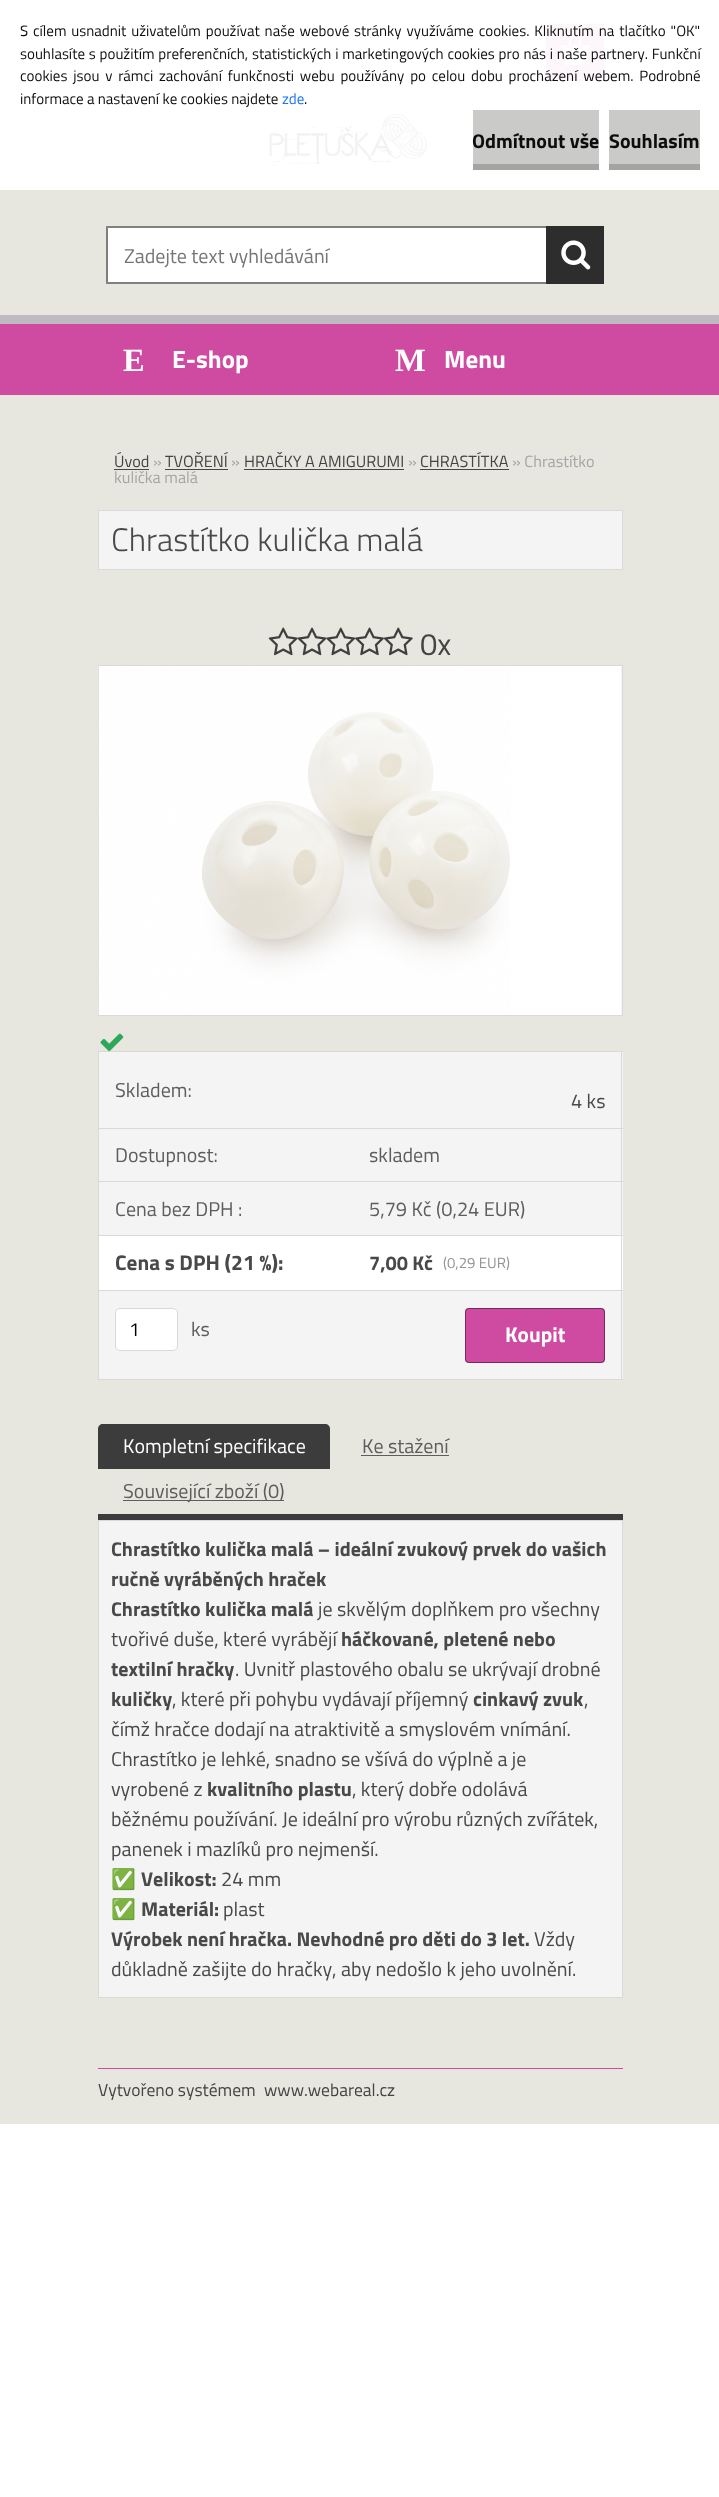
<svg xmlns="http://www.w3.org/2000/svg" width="719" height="2497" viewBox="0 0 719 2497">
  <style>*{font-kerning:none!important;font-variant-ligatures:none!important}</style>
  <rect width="100%" height="100%" fill="rgb(255,255,255)"/>
  <rect x="546" y="24" width="58" height="57" fill="rgb(253,246,250)"/>
  <image x="560" y="35" width="30" height="30" href="pic3.png"/>
  <g font-family="Titillium Web" font-size="15" fill="rgb(13,13,13)">
    <text>
      <tspan x="20" y="36" word-spacing="1.6">S cílem usnadnit uživatelům používat naše webové stránky využíváme cookies. Kliknutím na tlačítko "OK"</tspan>
      <tspan x="20" y="59" word-spacing="0.5">souhlasíte s použitím preferenčních, statistických i marketingových cookies pro nás i naše partnery. Funkční</tspan>
      <tspan x="20" y="81" word-spacing="2.5">cookies jsou v rámci zachování funkčnosti webu používány po celou dobu procházení webem. Podrobné</tspan>
      <tspan x="20" y="104">informace a nastavení ke cookies najdete</tspan>
    </text>
  </g>
  <text x="282" y="104" font-family="Titillium Web" font-size="15" fill="rgb(24,116,252)">zde</text>
  <text x="304" y="104" font-family="Titillium Web" font-size="15" fill="rgb(13,13,13)">.</text>
  <rect x="473" y="110" width="126" height="54" fill="rgb(202,202,201)"/>
  <rect x="473" y="164" width="126" height="6" fill="rgb(164,164,163)"/>
  <text x="472" y="148" font-family="Titillium Web" font-size="20" font-weight="bold" fill="rgb(13,13,13)">Odmítnout vše</text>
  <rect x="609" y="110" width="91" height="54" fill="rgb(202,202,201)"/>
  <rect x="609" y="164" width="91" height="6" fill="rgb(164,164,163)"/>
  <text x="609" y="148" font-family="Titillium Web" font-size="20" font-weight="bold" fill="rgb(13,13,13)">Souhlasím</text>
  <rect x="0" y="324" width="719" height="71" fill="rgb(207,75,162)"/>
  <rect x="0" y="190" width="719" height="125" fill="rgb(231,231,223)"/>
  <rect x="0" y="315" width="719" height="9" fill="rgb(191,186,193)"/>
  <image x="269" y="113" width="158" height="52" href="pic1.png"/>
  <rect x="106" y="226" width="440" height="58" fill="rgb(255,255,255)"/>
  <path d="M106 226H546V228H108Z" fill="rgb(128,128,128)"/>
  <path d="M546 284H106L108 282H546Z" fill="rgb(128,128,128)"/>
  <path d="M106 284V226L108 228V282Z" fill="rgba(0,0,0,0.5)"/>
  <text x="124" y="263" font-family="Titillium Web" font-size="20" fill="rgb(117,117,117)">Zadejte text vyhledávání</text>
  <rect x="546" y="226" width="58" height="58" fill="rgb(45,45,45)"/>
  <image x="561" y="240" width="30" height="30" href="pic2.png"/>
  <rect x="0" y="395" width="719" height="1729" fill="rgb(231,231,223)"/>
  <rect x="420" y="469" width="89" height="1" fill="rgb(69,69,67)"/>
  <rect x="244" y="469" width="160" height="1" fill="rgb(69,69,67)"/>
  <rect x="165" y="469" width="63" height="1" fill="rgb(69,69,67)"/>
  <rect x="114" y="469" width="35" height="1" fill="rgb(69,69,67)"/>
  <text x="123" y="371" font-family="Liberation Serif" font-size="32.5" font-weight="bold" fill="rgb(255,255,255)">E</text>
  <text x="172" y="368" font-family="Titillium Web" font-size="25" font-weight="bold" fill="rgb(255,255,255)">E-shop</text>
  <text x="395" y="371" font-family="Liberation Serif" font-size="32.5" font-weight="bold" fill="rgb(255,255,255)">M</text>
  <text x="444" y="368" font-family="Titillium Web" font-size="25" font-weight="bold" fill="rgb(255,255,255)">Menu</text>
  <text x="114" y="467" font-family="Titillium Web" font-size="16.25" fill="rgb(68,68,66)">Úvod</text>
  <text x="153" y="467" font-family="Titillium Web" font-size="16.25" fill="rgb(165,165,165)">»</text>
  <text x="165" y="467" font-family="Titillium Web" font-size="16.25" fill="rgb(68,68,66)">TVOŘENÍ</text>
  <text x="231" y="467" font-family="Titillium Web" font-size="16.25" fill="rgb(165,165,165)">»</text>
  <text x="244" y="467" font-family="Titillium Web" font-size="16.25" fill="rgb(68,68,66)">HRAČKY A AMIGURUMI</text>
  <text x="408" y="467" font-family="Titillium Web" font-size="16.25" fill="rgb(165,165,165)">»</text>
  <text x="420" y="467" font-family="Titillium Web" font-size="16.25" fill="rgb(68,68,66)">CHRASTÍTKA</text>
  <g font-family="Titillium Web" font-size="16.25" fill="rgb(165,165,165)">
    <text x="512" y="467">» Chrastítko</text>
    <text x="114" y="483">kulička malá</text>
  </g>
  <rect x="98.5" y="510.5" width="524" height="59" fill="rgb(244,244,244)" stroke="rgb(217,217,217)"/>
  <text x="111" y="551" font-family="Titillium Web" font-size="32.5" font-weight="300" fill="rgb(73,73,73)">Chrastítko kulička malá</text>
  <image x="268" y="627" width="30" height="29" href="pic4.png"/>
  <image x="297" y="627" width="30" height="29" href="pic5.png"/>
  <image x="326" y="627" width="30" height="29" href="pic6.png"/>
  <image x="355" y="627" width="29" height="29" href="pic7.png"/>
  <image x="384" y="627" width="29" height="29" href="pic8.png"/>
  <text x="420" y="655" font-family="Titillium Web" font-size="31" fill="rgb(68,68,66)">0x</text>
  <rect x="621" y="666" width="1" height="349" fill="rgb(244,244,244)"/>
  <rect x="98.5" y="665.5" width="524" height="350" fill="none" stroke="rgb(217,217,217)"/>
  <rect x="99" y="666" width="522" height="349" fill="rgb(255,255,255)"/>
  <image x="98" y="666" width="412" height="349" href="pic9.png"/>
  <image x="100" y="1033" width="24" height="18" href="pic10.png"/>
  <rect x="99" y="1236" width="524" height="54" fill="rgb(255,255,255)"/>
  <rect x="98" y="1051" width="525" height="1" fill="rgb(217,217,217)"/>
  <rect x="99" y="1052" width="524" height="76" fill="rgb(244,244,244)"/>
  <rect x="99" y="1129" width="524" height="52" fill="rgb(244,244,244)"/>
  <rect x="99" y="1182" width="524" height="53" fill="rgb(244,244,244)"/>
  <rect x="99" y="1291" width="524" height="88" fill="rgb(244,244,244)"/>
  <rect x="621" y="1051" width="1" height="329" fill="rgb(217,217,217)"/>
  <rect x="98" y="1379" width="525" height="1" fill="rgb(217,217,217)"/>
  <rect x="98" y="1051" width="1" height="329" fill="rgb(217,217,217)"/>
  <text x="115" y="1097" font-family="Titillium Web" font-size="20" fill="rgb(93,93,93)">Skladem:</text>
  <text x="571" y="1108" font-family="Titillium Web" font-size="20" fill="rgb(73,73,73)">4 ks</text>
  <rect x="98" y="1128" width="525" height="1" fill="rgb(217,217,217)"/>
  <g font-family="Titillium Web" font-size="20" fill="rgb(93,93,93)">
    <text x="115" y="1162">Dostupnost:</text>
    <text x="369" y="1162">skladem</text>
  </g>
  <rect x="98" y="1181" width="525" height="1" fill="rgb(217,217,217)"/>
  <g font-family="Titillium Web" font-size="20" fill="rgb(93,93,93)">
    <text x="115" y="1216">Cena bez DPH :</text>
    <text x="369" y="1216">5,79 Kč (0,24 EUR)</text>
  </g>
  <rect x="98" y="1235" width="525" height="1" fill="rgb(217,217,217)"/>
  <text x="115" y="1270" font-family="Titillium Web" font-size="21.25" font-weight="bold" fill="rgb(73,73,73)">Cena s DPH (21 %):</text>
  <text x="369" y="1270" font-family="Titillium Web" font-size="20" font-weight="bold" fill="rgb(73,73,73)">7,00 Kč</text>
  <text x="443" y="1268" font-family="Titillium Web" font-size="15" fill="rgb(148,148,148)">(0,29 EUR)</text>
  <rect x="98" y="1290" width="525" height="1" fill="rgb(217,217,217)"/>
  <rect x="115.5" y="1308.5" width="62" height="42" rx="4.5" fill="rgb(255,255,255)" stroke="rgb(217,217,217)"/>
  <text x="129" y="1336" font-family="Titillium Web" font-size="19" fill="rgb(0,0,0)">1</text>
  <text x="191" y="1336" font-family="Titillium Web" font-size="20" fill="rgb(93,93,93)">ks</text>
  <rect x="465" y="1308" width="140" height="55" rx="4" fill="rgb(207,75,162)"/>
  <rect x="465.5" y="1308.5" width="139" height="54" rx="3.5" fill="none" stroke="rgba(0,0,0,0.44)"/>
  <text x="505" y="1342" font-family="Titillium Web" font-size="21.25" font-weight="bold" fill="rgb(255,255,255)">Koupit</text>
  <rect x="98" y="1514" width="525" height="6" fill="rgb(60,60,60)"/>
  <path d="M103 1424H325C328 1424 330 1426 330 1429V1469H98V1429C98 1426 100 1424 103 1424Z" fill="rgb(60,60,60)"/>
  <text x="123" y="1453" font-family="Titillium Web" font-size="20" fill="rgb(255,255,255)">Kompletní specifikace</text>
  <text x="362" y="1453" font-family="Titillium Web" font-size="20" fill="rgb(93,93,93)">Ke stažení</text>
  <rect x="361" y="1455" width="88" height="1" fill="rgb(93,93,93)"/>
  <rect x="123" y="1500" width="161" height="1" fill="rgb(93,93,93)"/>
  <text x="123" y="1498" font-family="Titillium Web" font-size="20" fill="rgb(93,93,93)">Související zboží (0)</text>
  <rect x="98.5" y="1520.5" width="524" height="477" fill="rgb(244,244,244)" stroke="rgb(217,217,217)"/>
  <g font-family="Titillium Web" font-size="20" font-weight="bold" fill="rgb(73,73,73)">
    <text>
      <tspan x="111" y="1556">Chrastítko kulička malá – ideální zvukový prvek do vašich</tspan>
      <tspan x="111" y="1586">ručně vyráběných hraček</tspan>
      <tspan x="111" y="1616">Chrastítko kulička malá</tspan>
    </text>
  </g>
  <g font-family="Titillium Web" font-size="20" fill="rgb(73,73,73)">
    <text x="318" y="1616">je skvělým doplňkem pro všechny</text>
    <text x="111" y="1646">tvořivé duše, které vyrábějí</text>
  </g>
  <g font-family="Titillium Web" font-size="20" font-weight="bold" fill="rgb(73,73,73)">
    <text x="341" y="1646">háčkované, pletené nebo</text>
    <text x="111" y="1676">textilní hračky</text>
  </g>
  <text x="235" y="1676" font-family="Titillium Web" font-size="20" fill="rgb(73,73,73)">. Uvnitř plastového obalu se ukrývají drobné</text>
  <text x="111" y="1706" font-family="Titillium Web" font-size="20" font-weight="bold" fill="rgb(73,73,73)">kuličky</text>
  <text x="172" y="1706" font-family="Titillium Web" font-size="20" fill="rgb(73,73,73)">, které při pohybu vydávají příjemný</text>
  <text x="473" y="1706" font-family="Titillium Web" font-size="20" font-weight="bold" fill="rgb(73,73,73)">cinkavý zvuk</text>
  <g font-family="Titillium Web" font-size="20" fill="rgb(73,73,73)">
    <text x="584" y="1706">,</text>
    <text>
      <tspan x="111" y="1736">čímž hračce dodají na atraktivitě a smyslovém vnímání.</tspan>
      <tspan x="111" y="1766">Chrastítko je lehké, snadno se všívá do výplně a je</tspan>
      <tspan x="111" y="1796">vyrobené z</tspan>
    </text>
  </g>
  <text x="207" y="1796" font-family="Titillium Web" font-size="20" font-weight="bold" fill="rgb(73,73,73)">kvalitního plastu</text>
  <g font-family="Titillium Web" font-size="20" fill="rgb(73,73,73)">
    <text x="352" y="1796">, který dobře odolává</text>
    <text>
      <tspan x="111" y="1826">běžnému používání. Je ideální pro výrobu různých zvířátek,</tspan>
      <tspan x="111" y="1856">panenek i mazlíků pro nejmenší.</tspan>
    </text>
  </g>
  <text x="111" y="1886" font-family="Noto Color Emoji" font-size="20" fill="rgb(73,73,73)">✅</text>
  <text x="141" y="1886" font-family="Titillium Web" font-size="20" font-weight="bold" fill="rgb(73,73,73)">Velikost:</text>
  <text x="221" y="1886" font-family="Titillium Web" font-size="20" fill="rgb(73,73,73)">24 mm</text>
  <text x="111" y="1916" font-family="Noto Color Emoji" font-size="20" fill="rgb(73,73,73)">✅</text>
  <text x="141" y="1916" font-family="Titillium Web" font-size="20" font-weight="bold" fill="rgb(73,73,73)">Materiál:</text>
  <text x="223" y="1916" font-family="Titillium Web" font-size="20" fill="rgb(73,73,73)">plast</text>
  <text x="111" y="1946" font-family="Titillium Web" font-size="20" font-weight="bold" fill="rgb(73,73,73)">Výrobek není hračka. Nevhodné pro děti do 3 let.</text>
  <g font-family="Titillium Web" font-size="20" fill="rgb(73,73,73)">
    <text x="534" y="1946">Vždy</text>
    <text x="111" y="1976">důkladně zašijte do hračky, aby nedošlo k jeho uvolnění.</text>
  </g>
  <rect x="98" y="2068" width="525" height="1" fill="rgb(207,75,162)"/>
  <g font-family="Titillium Web" font-size="17.5" fill="rgb(68,68,66)">
    <text x="98" y="2096">Vytvořeno systémem</text>
    <text x="264" y="2096">www.webareal.cz</text>
  </g>
</svg>
